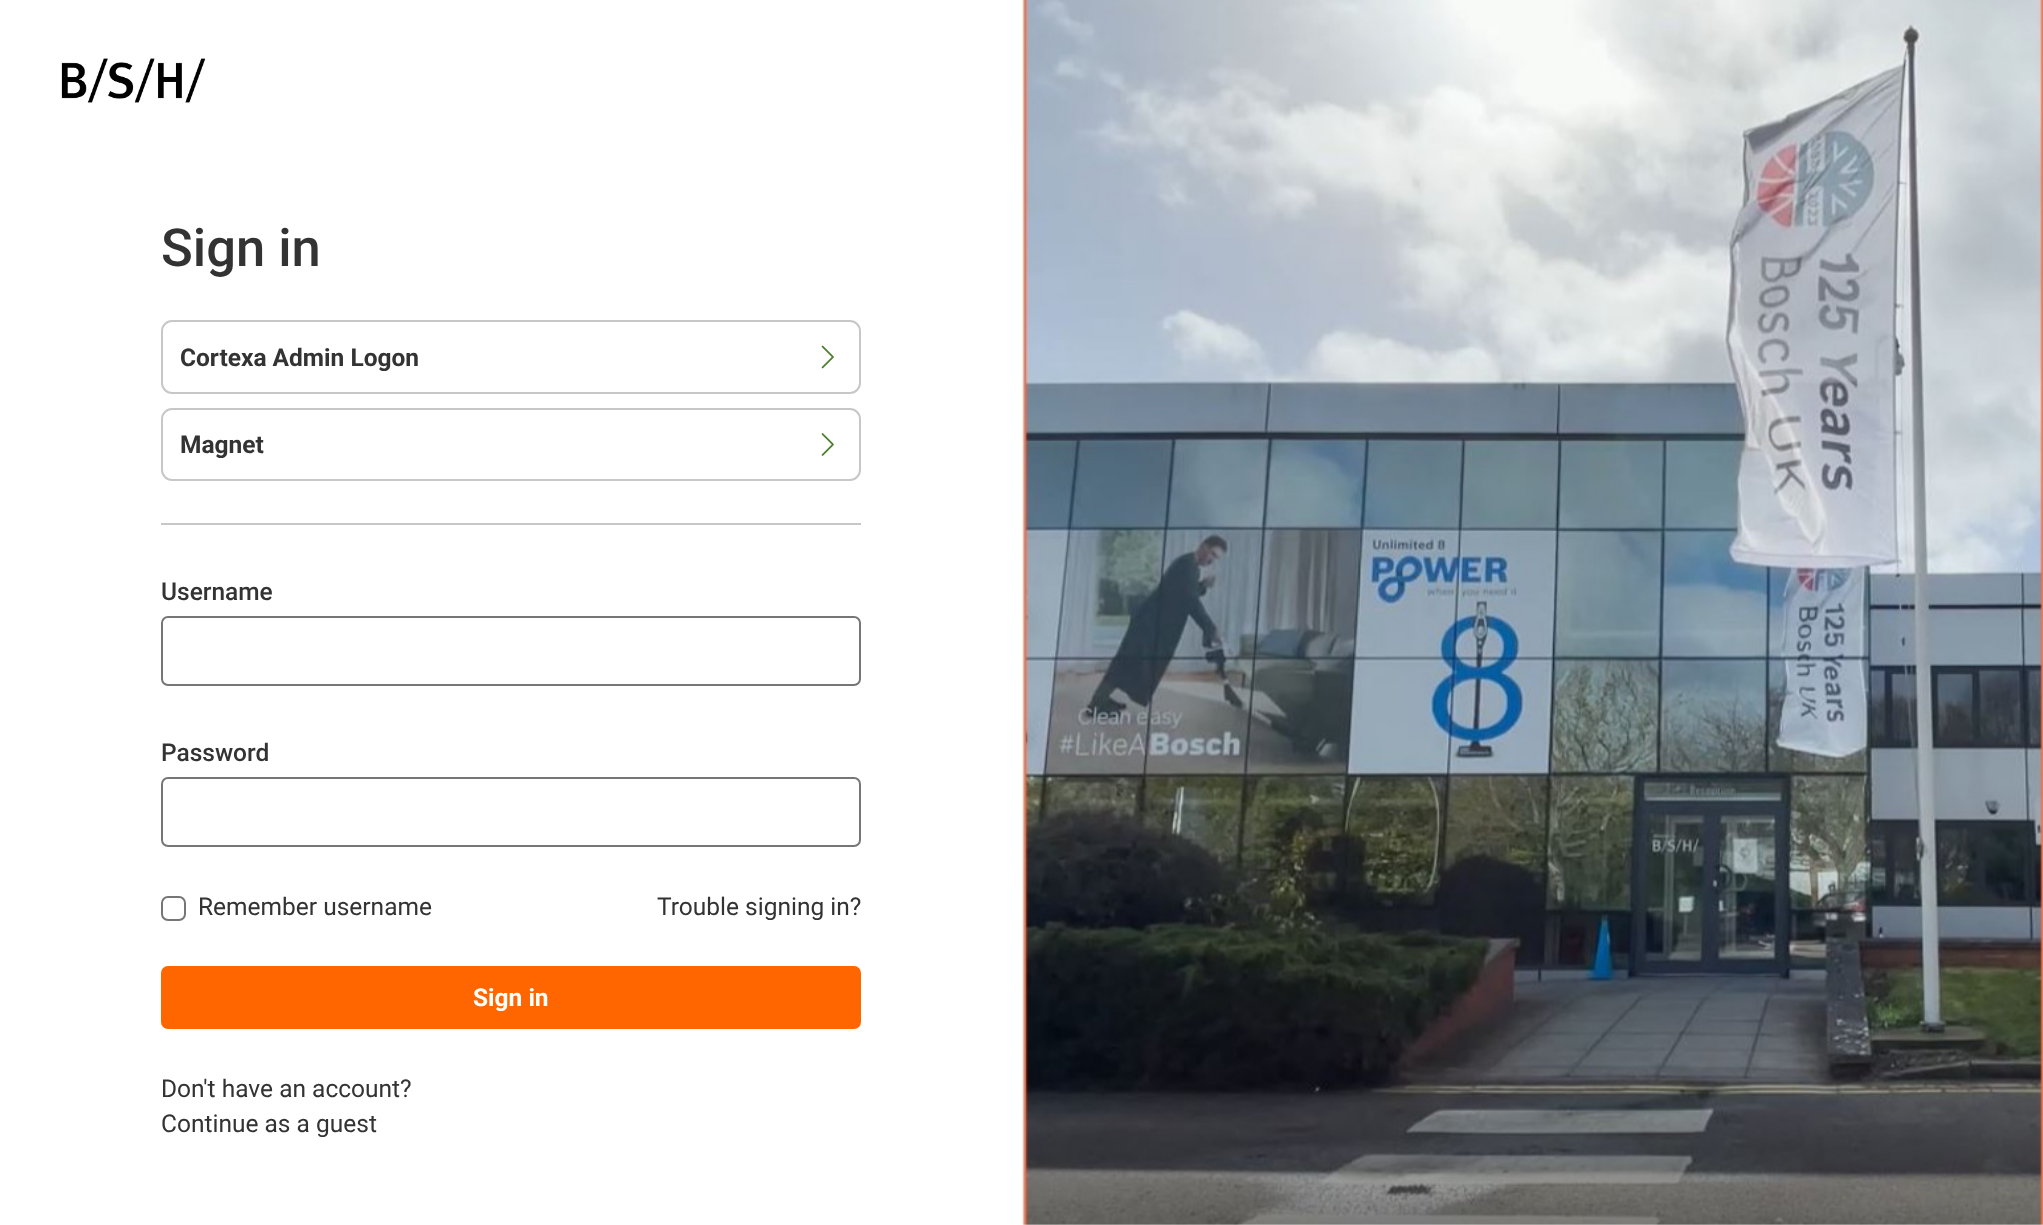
<svg xmlns="http://www.w3.org/2000/svg" width="2043" height="1225" viewBox="0 0 2043 1225">
  <rect width="100%" height="100%" fill="rgb(255,255,255)"/>
  <image x="61" y="58" width="145" height="45" href="pic1.png"/>
  <text x="161" y="266" font-family="Roboto" font-size="52.5" font-weight="500" fill="rgb(51,51,51)">Sign in</text>
  <rect x="162" y="321" width="698" height="72" rx="10" fill="none" stroke="rgb(199,199,199)" stroke-width="2"/>
  <text x="180" y="366" font-family="Roboto" font-size="24.5" font-weight="bold" fill="rgb(51,51,51)">Cortexa Admin Logon</text>
  <image x="821" y="345" width="13" height="24" href="pic2.png"/>
  <rect x="162" y="409" width="698" height="71" rx="10" fill="none" stroke="rgb(199,199,199)" stroke-width="2"/>
  <text x="180" y="453" font-family="Roboto" font-size="24.5" font-weight="bold" fill="rgb(51,51,51)">Magnet</text>
  <image x="821" y="433" width="13" height="23" href="pic3.png"/>
  <rect x="161" y="523" width="700" height="2" fill="rgb(199,199,199)"/>
  <text x="161" y="600" font-family="Roboto" font-size="24.5" font-weight="500" fill="rgb(51,51,51)">Username</text>
  <rect x="162" y="617" width="698" height="68" rx="6" fill="none" stroke="rgb(118,118,118)" stroke-width="2"/>
  <text x="161" y="761" font-family="Roboto" font-size="24.5" font-weight="500" fill="rgb(51,51,51)">Password</text>
  <rect x="162" y="778" width="698" height="68" rx="6" fill="none" stroke="rgb(118,118,118)" stroke-width="2"/>
  <rect x="162" y="897" width="23" height="23" rx="6" fill="none" stroke="rgb(118,118,118)" stroke-width="2"/>
  <g font-family="Roboto" font-size="24.5" fill="rgb(51,51,51)">
    <text x="198" y="915">Remember username</text>
    <text x="657" y="915">Trouble signing in?</text>
  </g>
  <rect x="162" y="967" width="698" height="61" rx="6" fill="rgb(255,102,0)" stroke="rgb(255,102,0)" stroke-width="2"/>
  <text x="473" y="1006" font-family="Roboto" font-size="24.5" font-weight="bold" fill="rgb(255,255,255)">Sign in</text>
  <g font-family="Roboto" font-size="24.5" fill="rgb(51,51,51)">
    <text>
      <tspan x="161" y="1097">Don't have an account?</tspan>
      <tspan x="161" y="1132">Continue as a guest</tspan>
    </text>
  </g>
  <image x="1022" y="0" width="1021" height="1225" href="pic4.png"/>
</svg>
